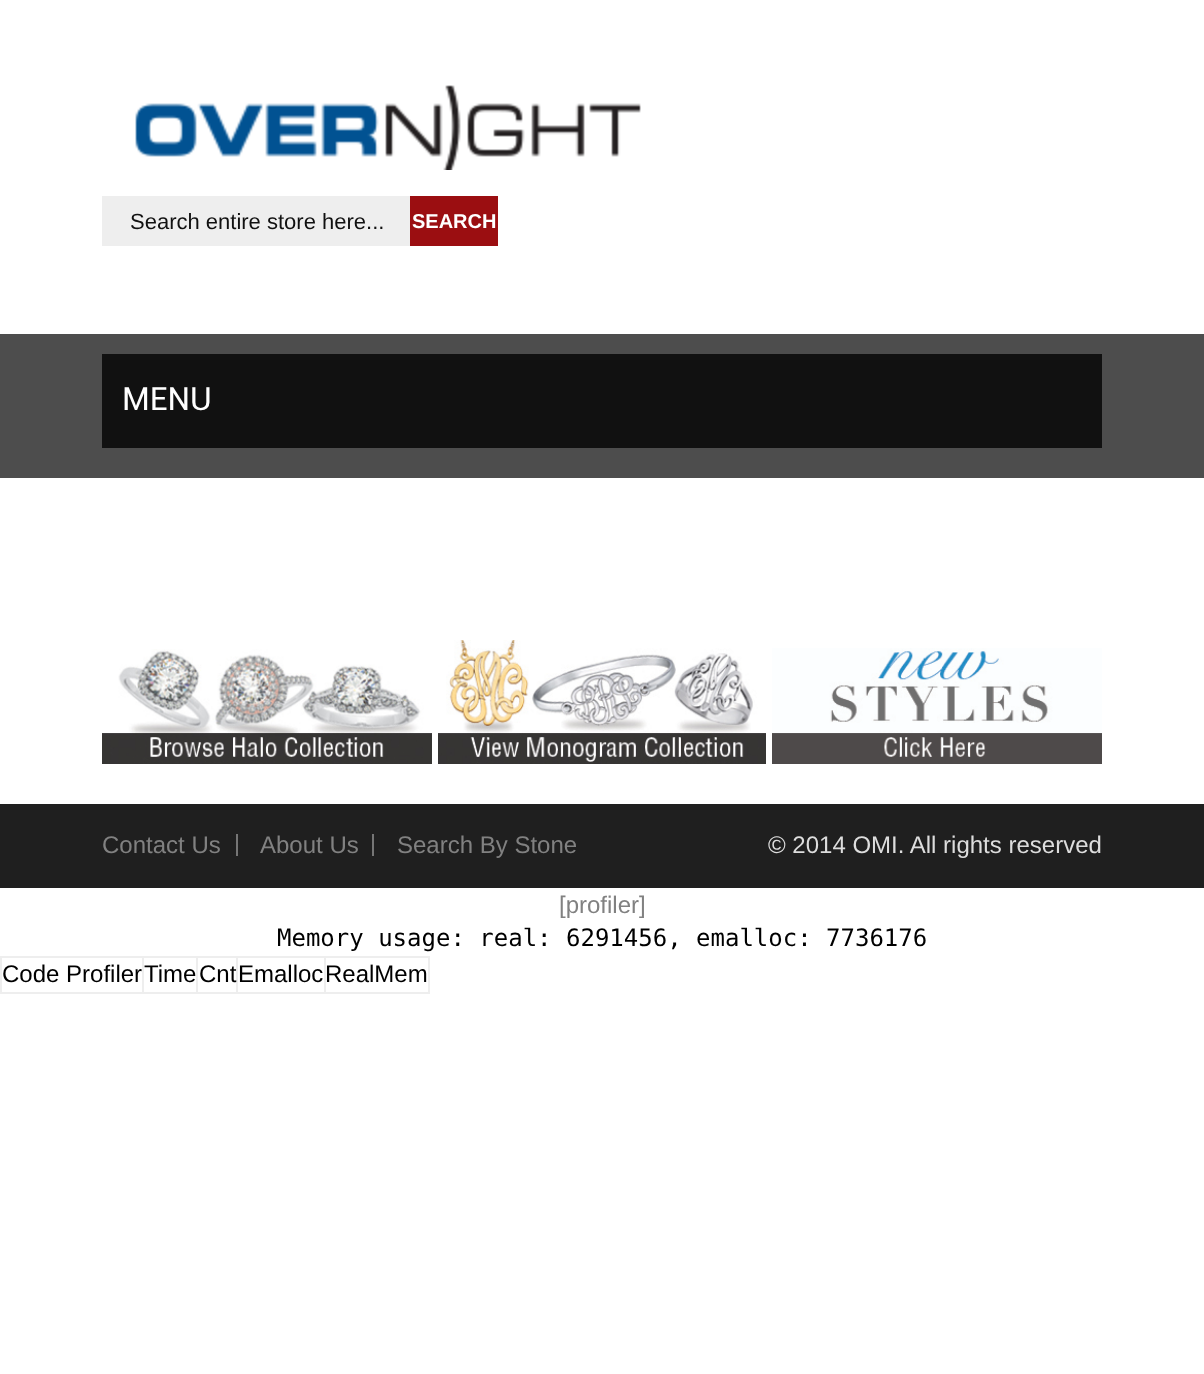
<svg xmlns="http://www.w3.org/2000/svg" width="1204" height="1374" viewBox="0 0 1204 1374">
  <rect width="100%" height="100%" fill="rgb(255,255,255)"/>
  <image x="135" y="85" width="506" height="85" href="pic1.png"/>
  <rect x="102" y="196" width="308" height="50" fill="rgb(238,238,238)"/>
  <text x="130" y="229" font-family="Liberation Sans" font-size="22" fill="rgb(17,17,17)">Search entire store here...</text>
  <rect x="410" y="196" width="88" height="50" fill="rgb(155,14,17)"/>
  <text x="412" y="228" font-family="Liberation Sans" font-size="20" font-weight="bold" fill="rgb(255,255,255)">SEARCH</text>
  <rect x="0" y="334" width="1204" height="144" fill="rgb(77,77,77)"/>
  <rect x="102" y="354" width="1000" height="94" fill="rgb(17,17,17)"/>
  <text x="122" y="410" font-family="Roboto" font-size="32" fill="rgb(255,255,255)">MENU</text>
  <image x="102" y="649" width="330" height="115" href="pic2.png"/>
  <image x="438" y="640" width="328" height="124" href="pic3.png"/>
  <image x="772" y="648" width="330" height="116" href="pic4.png"/>
  <rect x="0" y="804" width="1204" height="84" fill="rgb(31,31,31)"/>
  <text x="102" y="853" font-family="Liberation Sans" font-size="24" fill="rgb(129,129,129)">Contact Us</text>
  <rect x="236" y="834" width="2" height="22" fill="rgb(117,117,117)"/>
  <text x="260" y="853" font-family="Liberation Sans" font-size="24" fill="rgb(129,129,129)">About Us</text>
  <rect x="372" y="834" width="2" height="22" fill="rgb(117,117,117)"/>
  <text x="397" y="853" font-family="Liberation Sans" font-size="24" fill="rgb(129,129,129)">Search By Stone</text>
  <text x="768" y="853" font-family="Liberation Sans" font-size="24" fill="rgb(221,221,221)">© 2014 OMI. All rights reserved</text>
  <text x="559" y="913" font-family="Liberation Sans" font-size="24" fill="rgb(129,129,129)">[profiler]</text>
  <text x="277" y="946" font-family="DejaVu Sans Mono" font-size="24" fill="rgb(0,0,0)">Memory usage: real: 6291456, emalloc: 7736176</text>
  <rect x="324" y="956" width="106" height="2" fill="rgb(238,238,238)"/>
  <rect x="428" y="956" width="2" height="38" fill="rgb(238,238,238)"/>
  <rect x="324" y="992" width="106" height="2" fill="rgb(238,238,238)"/>
  <rect x="324" y="956" width="2" height="38" fill="rgb(238,238,238)"/>
  <rect x="236" y="956" width="90" height="2" fill="rgb(238,238,238)"/>
  <rect x="236" y="992" width="90" height="2" fill="rgb(238,238,238)"/>
  <rect x="236" y="956" width="2" height="38" fill="rgb(238,238,238)"/>
  <rect x="196" y="956" width="42" height="2" fill="rgb(238,238,238)"/>
  <rect x="196" y="992" width="42" height="2" fill="rgb(238,238,238)"/>
  <rect x="196" y="956" width="2" height="38" fill="rgb(238,238,238)"/>
  <rect x="142" y="956" width="56" height="2" fill="rgb(238,238,238)"/>
  <rect x="142" y="992" width="56" height="2" fill="rgb(238,238,238)"/>
  <rect x="142" y="956" width="2" height="38" fill="rgb(238,238,238)"/>
  <rect x="0" y="956" width="144" height="2" fill="rgb(238,238,238)"/>
  <rect x="0" y="992" width="144" height="2" fill="rgb(238,238,238)"/>
  <rect x="0" y="956" width="2" height="38" fill="rgb(238,238,238)"/>
  <g font-family="Liberation Sans" font-size="24" fill="rgb(0,0,0)">
    <text x="2" y="982">Code Profiler</text>
    <text x="144" y="982">Time</text>
    <text x="199" y="982">Cnt</text>
    <text x="238" y="982">Emalloc</text>
    <text x="325" y="982">RealMem</text>
  </g>
</svg>
